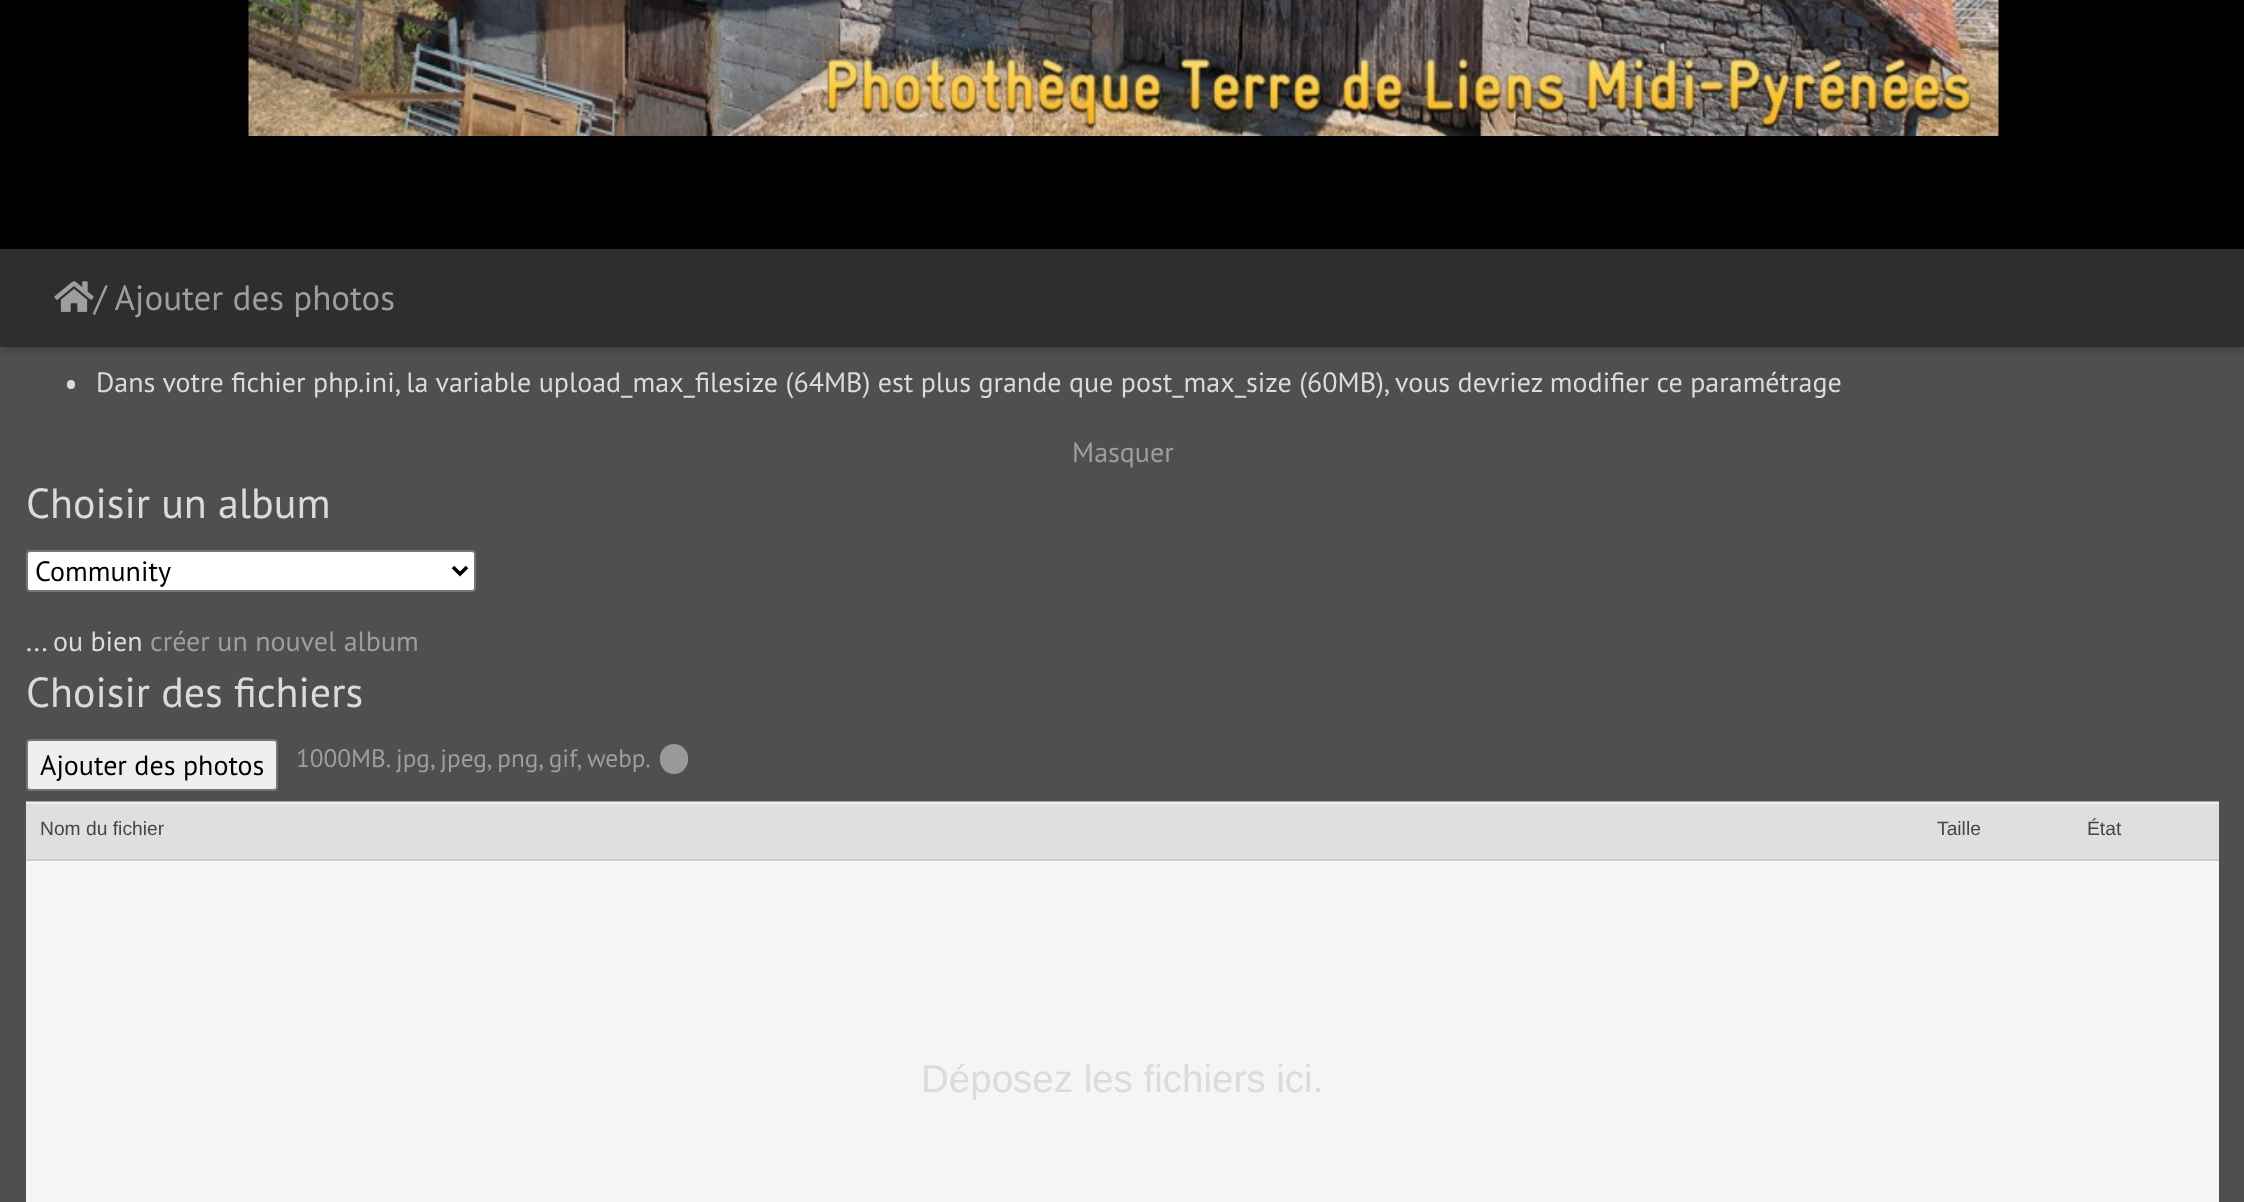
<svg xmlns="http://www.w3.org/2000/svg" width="2244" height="1202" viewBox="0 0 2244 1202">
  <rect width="100%" height="100%" fill="rgb(79,79,79)"/>
  <rect x="0" y="0" width="2244" height="249" fill="rgb(0,0,0)"/>
  <image x="248" y="0" width="1751" height="136" href="pic1.png"/>
  <rect x="2" y="256" width="2242" height="94" fill="rgba(0,0,0,0.2)" filter="blur(4.5px)"/>
  <rect x="0" y="249" width="2244" height="98" fill="rgb(46,46,46)"/>
  <image x="54" y="281" width="40" height="31" href="pic2.png"/>
  <text x="94" y="310" font-family="PT Sans" font-size="35" fill="rgb(158,158,158)">/ Ajouter des photos</text>
  <rect x="67" y="380" width="8" height="9" rx="4" fill="rgb(219,219,219)"/>
  <text x="96" y="392" font-family="PT Sans" font-size="28" fill="rgb(219,219,219)">Dans votre fichier php.ini, la variable upload_max_filesize (64MB) est plus grande que post_max_size (60MB), vous devriez modifier ce paramétrage</text>
  <text x="1072" y="462" font-family="PT Sans" font-size="28" fill="rgb(158,158,158)">Masquer</text>
  <text x="26" y="518" font-family="PT Sans" font-size="42" fill="rgb(219,219,219)">Choisir un album</text>
  <rect x="27" y="551" width="448" height="40" rx="3" fill="rgb(255,255,255)" stroke="rgb(118,118,118)" stroke-width="2"/>
  <path d="M453 567L460 574L467 567" fill="none" stroke="rgb(0,0,0)" stroke-width="3.5"/>
  <text x="35" y="581" font-family="PT Sans" font-size="28" fill="rgb(0,0,0)">Community</text>
  <text x="26" y="651" font-family="PT Sans" font-size="28" fill="rgb(219,219,219)">... ou bien</text>
  <text x="150" y="651" font-family="PT Sans" font-size="28" fill="rgb(158,158,158)">créer un nouvel album</text>
  <text x="26" y="707" font-family="PT Sans" font-size="42" fill="rgb(219,219,219)">Choisir des fichiers</text>
  <rect x="27" y="740" width="250" height="50" rx="3" fill="rgb(239,239,239)" stroke="rgb(118,118,118)" stroke-width="2"/>
  <text x="40" y="775" font-family="PT Sans" font-size="28" fill="rgb(0,0,0)">Ajouter des photos</text>
  <text x="296" y="767" font-family="PT Sans" font-size="25.25" fill="rgb(158,158,158)">1000MB. jpg, jpeg, png, gif, webp.</text>
  <rect x="660" y="744" width="28" height="30" rx="14" fill="rgb(153,153,153)"/>
  <rect x="26" y="801" width="2193" height="1" fill="rgb(167,167,167)"/>
  <rect x="26" y="804" width="2193" height="55" fill="rgb(223,223,223)"/>
  <rect x="26" y="802" width="2193" height="2" fill="rgb(238,238,238)"/>
  <rect x="26" y="859" width="2193" height="2" fill="rgb(205,205,205)"/>
  <g font-family="Liberation Sans" font-size="19.25" fill="rgb(66,69,74)">
    <text x="40" y="835">Nom du fichier</text>
    <text x="1937" y="835">Taille</text>
    <text x="2087" y="835">État</text>
  </g>
  <rect x="26" y="861" width="2193" height="341" fill="rgb(245,245,245)"/>
  <text x="921" y="1092" font-family="Liberation Sans" font-size="38.5" fill="rgb(219,219,219)">Déposez les fichiers ici.</text>
</svg>
